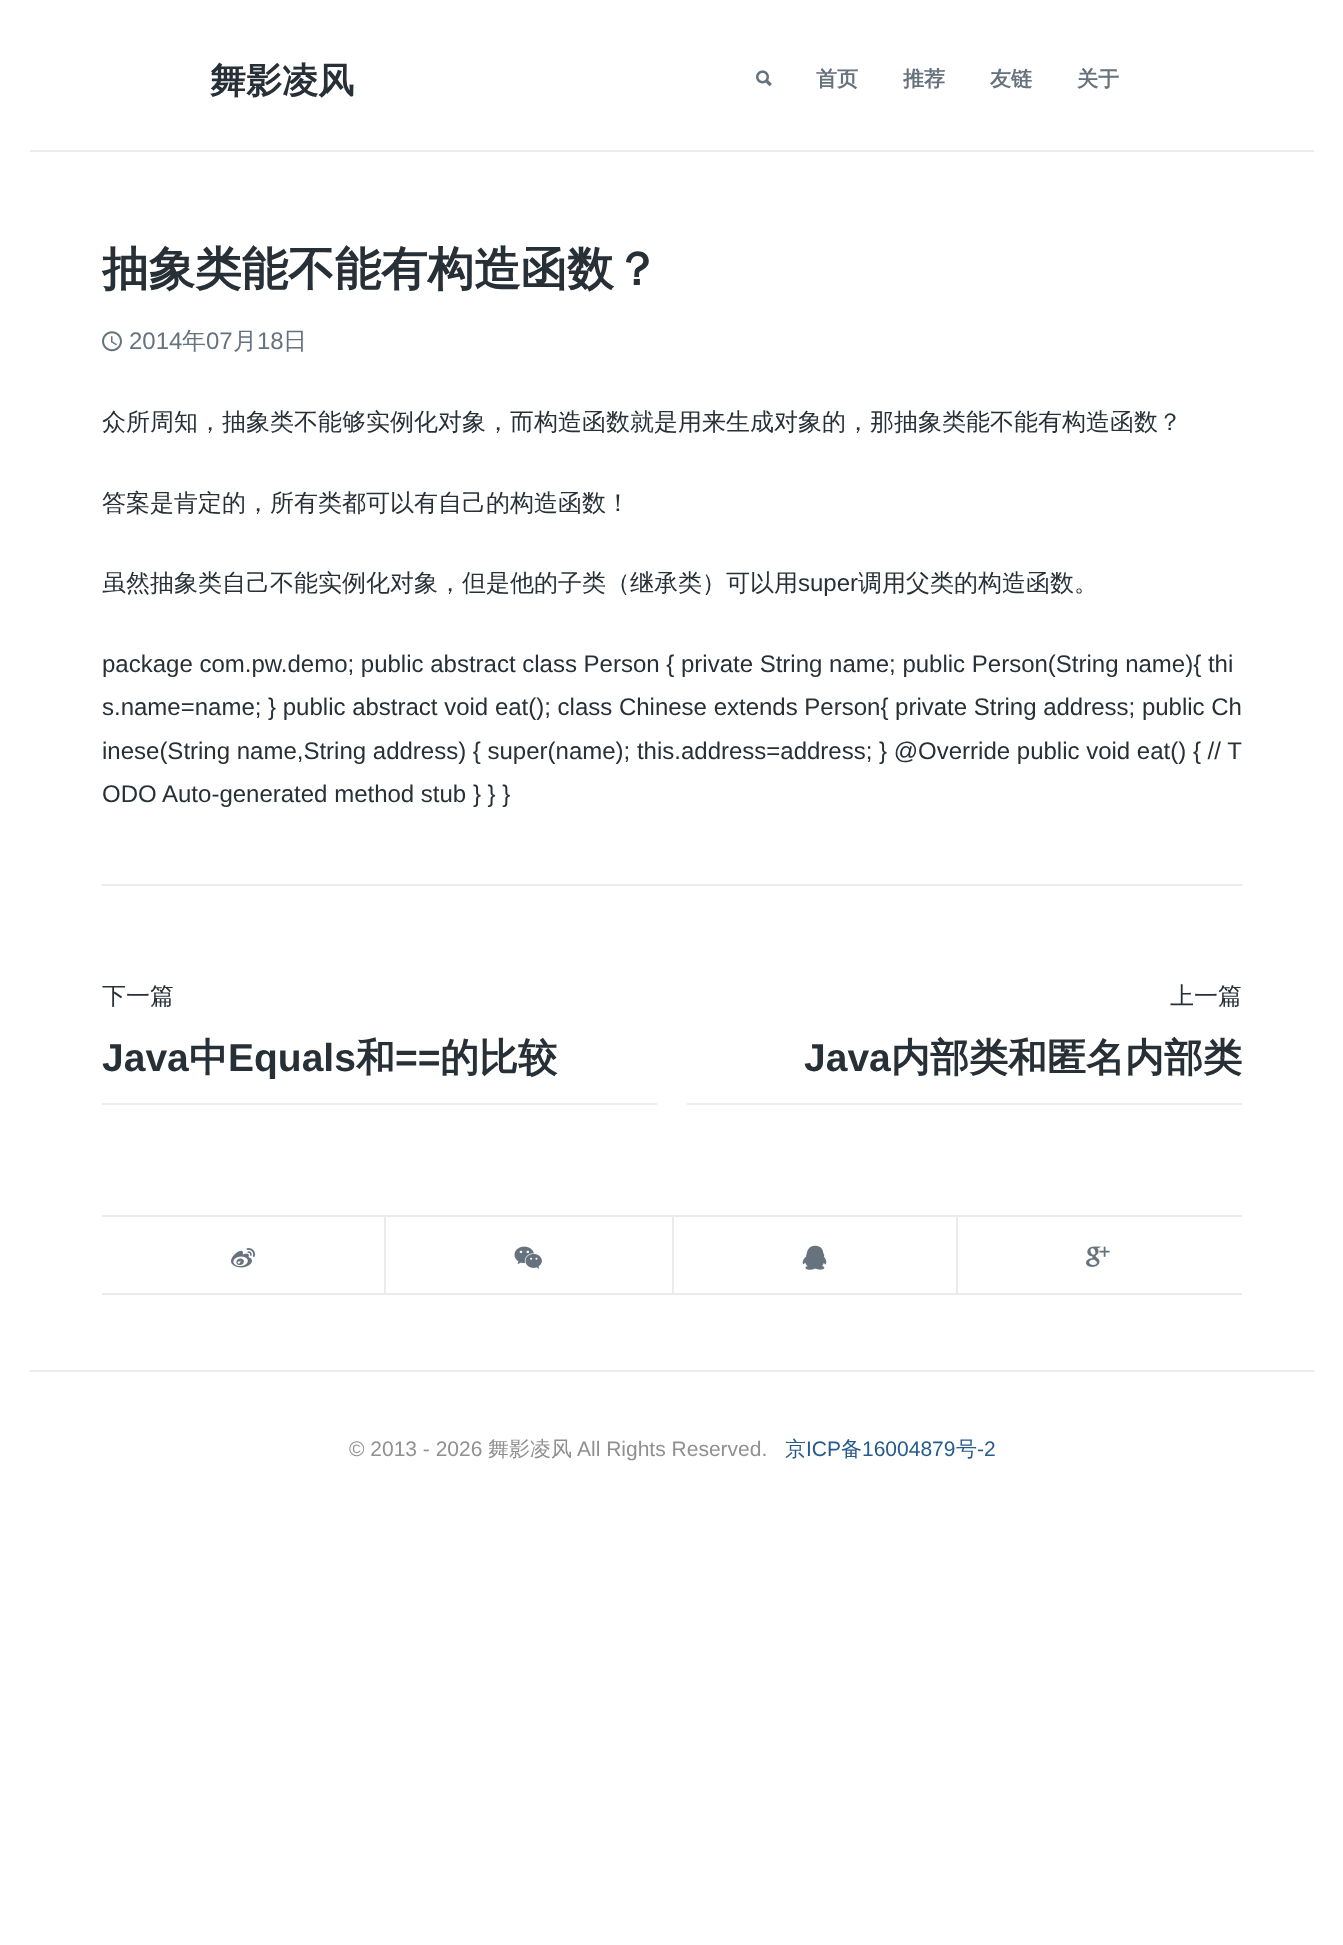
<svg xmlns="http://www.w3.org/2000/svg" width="1343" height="1945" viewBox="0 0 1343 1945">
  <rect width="100%" height="100%" fill="rgb(255,255,255)"/>
  <rect x="30" y="150" width="1284" height="2" fill="rgb(233,235,237)"/>
  <text x="210" y="93" font-family="WenQuanYi Zen Hei" font-size="36" font-weight="bold" fill="rgb(40,48,55)">舞影凌风</text>
  <image x="756" y="70" width="16" height="17" href="pic1.png"/>
  <g font-family="WenQuanYi Zen Hei" font-size="21" font-weight="bold" fill="rgb(102,114,125)">
    <text x="816" y="86">首页</text>
    <text x="903" y="86">推荐</text>
    <text x="990" y="86">友链</text>
    <text x="1077" y="86">关于</text>
  </g>
  <rect x="102" y="884" width="1140" height="2" fill="rgb(233,235,237)"/>
  <text x="102" y="285" font-family="WenQuanYi Zen Hei" font-size="46.5" font-weight="bold" fill="rgb(40,48,55)">抽象类能不能有构造函数？</text>
  <image x="102" y="331" width="20" height="21" href="pic2.png"/>
  <text x="129" y="349" font-family="Liberation Sans" font-size="24" fill="rgb(102,114,125)">2014</text>
  <text x="182" y="349" font-family="WenQuanYi Zen Hei" font-size="24" font-weight="500" fill="rgb(102,114,125)">年</text>
  <text x="206" y="349" font-family="Liberation Sans" font-size="24" fill="rgb(102,114,125)">07</text>
  <text x="233" y="349" font-family="WenQuanYi Zen Hei" font-size="24" font-weight="500" fill="rgb(102,114,125)">月</text>
  <text x="257" y="349" font-family="Liberation Sans" font-size="24" fill="rgb(102,114,125)">18</text>
  <text x="283" y="349" font-family="WenQuanYi Zen Hei" font-size="24" font-weight="500" fill="rgb(102,114,125)">日</text>
  <g font-family="WenQuanYi Zen Hei" font-size="24" font-weight="500" fill="rgb(40,48,55)">
    <text x="102" y="430">众所周知，抽象类不能够实例化对象，而构造函数就是用来生成对象的，那抽象类能不能有构造函数？</text>
    <text x="102" y="511">答案是肯定的，所有类都可以有自己的构造函数！</text>
    <text x="102" y="591">虽然抽象类自己不能实例化对象，但是他的子类（继承类）可以用</text>
  </g>
  <text x="798" y="591" font-family="Liberation Sans" font-size="24" fill="rgb(40,48,55)">super</text>
  <text x="858" y="591" font-family="WenQuanYi Zen Hei" font-size="24" font-weight="500" fill="rgb(40,48,55)">调用父类的构造函数。</text>
  <g font-family="Liberation Sans" font-size="24" fill="rgb(40,48,55)">
    <text>
      <tspan x="102" y="672">package com.pw.demo; public abstract class Person { private String name; public Person(String name){ thi</tspan>
      <tspan x="102" y="715">s.name=name; } public abstract void eat(); class Chinese extends Person{ private String address; public Ch</tspan>
      <tspan x="102" y="759">inese(String name,String address) { super(name); this.address=address; } @Override public void eat() { // T</tspan>
      <tspan x="102" y="802">ODO Auto-generated method stub } } }</tspan>
    </text>
  </g>
  <text x="102" y="1004" font-family="WenQuanYi Zen Hei" font-size="24" font-weight="500" fill="rgb(40,48,55)">下一篇</text>
  <rect x="102" y="1103" width="555" height="2" fill="rgb(236,236,236)"/>
  <text x="102" y="1071" font-family="Liberation Sans" font-size="39" font-weight="bold" fill="rgb(40,48,55)">Java</text>
  <text x="189" y="1071" font-family="WenQuanYi Zen Hei" font-size="39" font-weight="bold" fill="rgb(40,48,55)">中</text>
  <text x="228" y="1071" font-family="Liberation Sans" font-size="39" font-weight="bold" fill="rgb(40,48,55)">Equals</text>
  <text x="356" y="1071" font-family="WenQuanYi Zen Hei" font-size="39" font-weight="bold" fill="rgb(40,48,55)">和</text>
  <text x="395" y="1071" font-family="Liberation Sans" font-size="39" font-weight="bold" fill="rgb(40,48,55)">==</text>
  <text x="440" y="1071" font-family="WenQuanYi Zen Hei" font-size="39" font-weight="bold" fill="rgb(40,48,55)">的比较</text>
  <text x="1170" y="1004" font-family="WenQuanYi Zen Hei" font-size="24" font-weight="500" fill="rgb(40,48,55)">上一篇</text>
  <rect x="687" y="1103" width="555" height="2" fill="rgb(236,236,236)"/>
  <text x="804" y="1071" font-family="Liberation Sans" font-size="39" font-weight="bold" fill="rgb(40,48,55)">Java</text>
  <text x="891" y="1071" font-family="WenQuanYi Zen Hei" font-size="39" font-weight="bold" fill="rgb(40,48,55)">内部类和匿名内部类</text>
  <rect x="102" y="1215" width="855" height="2" fill="rgb(233,235,237)"/>
  <rect x="384" y="1215" width="2" height="80" fill="rgb(233,235,237)"/>
  <rect x="102" y="1293" width="284" height="2" fill="rgb(233,235,237)"/>
  <image x="231" y="1248" width="24" height="20" href="pic3.png"/>
  <rect x="672" y="1215" width="2" height="80" fill="rgb(233,235,237)"/>
  <rect x="386" y="1293" width="288" height="2" fill="rgb(233,235,237)"/>
  <image x="514" y="1246" width="28" height="23" href="pic4.png"/>
  <rect x="956" y="1215" width="2" height="80" fill="rgb(233,235,237)"/>
  <rect x="674" y="1293" width="568" height="2" fill="rgb(233,235,237)"/>
  <image x="802" y="1245" width="25" height="25" href="pic5.png"/>
  <rect x="957" y="1215" width="285" height="2" fill="rgb(233,235,237)"/>
  <image x="1086" y="1246" width="24" height="21" href="pic6.png"/>
  <rect x="30" y="1370" width="1284" height="2" fill="rgb(233,235,237)"/>
  <text x="349" y="1456" font-family="Liberation Sans" font-size="21" fill="rgb(144,144,144)">© 2013 - 2026</text>
  <text x="488" y="1456" font-family="WenQuanYi Zen Hei" font-size="21" font-weight="500" fill="rgb(144,144,144)">舞影凌风</text>
  <text x="577" y="1456" font-family="Liberation Sans" font-size="21" fill="rgb(144,144,144)">All Rights Reserved.</text>
  <text x="785" y="1456" font-family="WenQuanYi Zen Hei" font-size="21" font-weight="500" fill="rgb(39,91,140)">京</text>
  <text x="806" y="1456" font-family="Liberation Sans" font-size="21" fill="rgb(39,91,140)">ICP</text>
  <text x="841" y="1456" font-family="WenQuanYi Zen Hei" font-size="21" font-weight="500" fill="rgb(39,91,140)">备</text>
  <text x="862" y="1456" font-family="Liberation Sans" font-size="21" fill="rgb(39,91,140)">16004879</text>
  <text x="956" y="1456" font-family="WenQuanYi Zen Hei" font-size="21" font-weight="500" fill="rgb(39,91,140)">号</text>
  <text x="977" y="1456" font-family="Liberation Sans" font-size="21" fill="rgb(39,91,140)">-2</text>
</svg>
